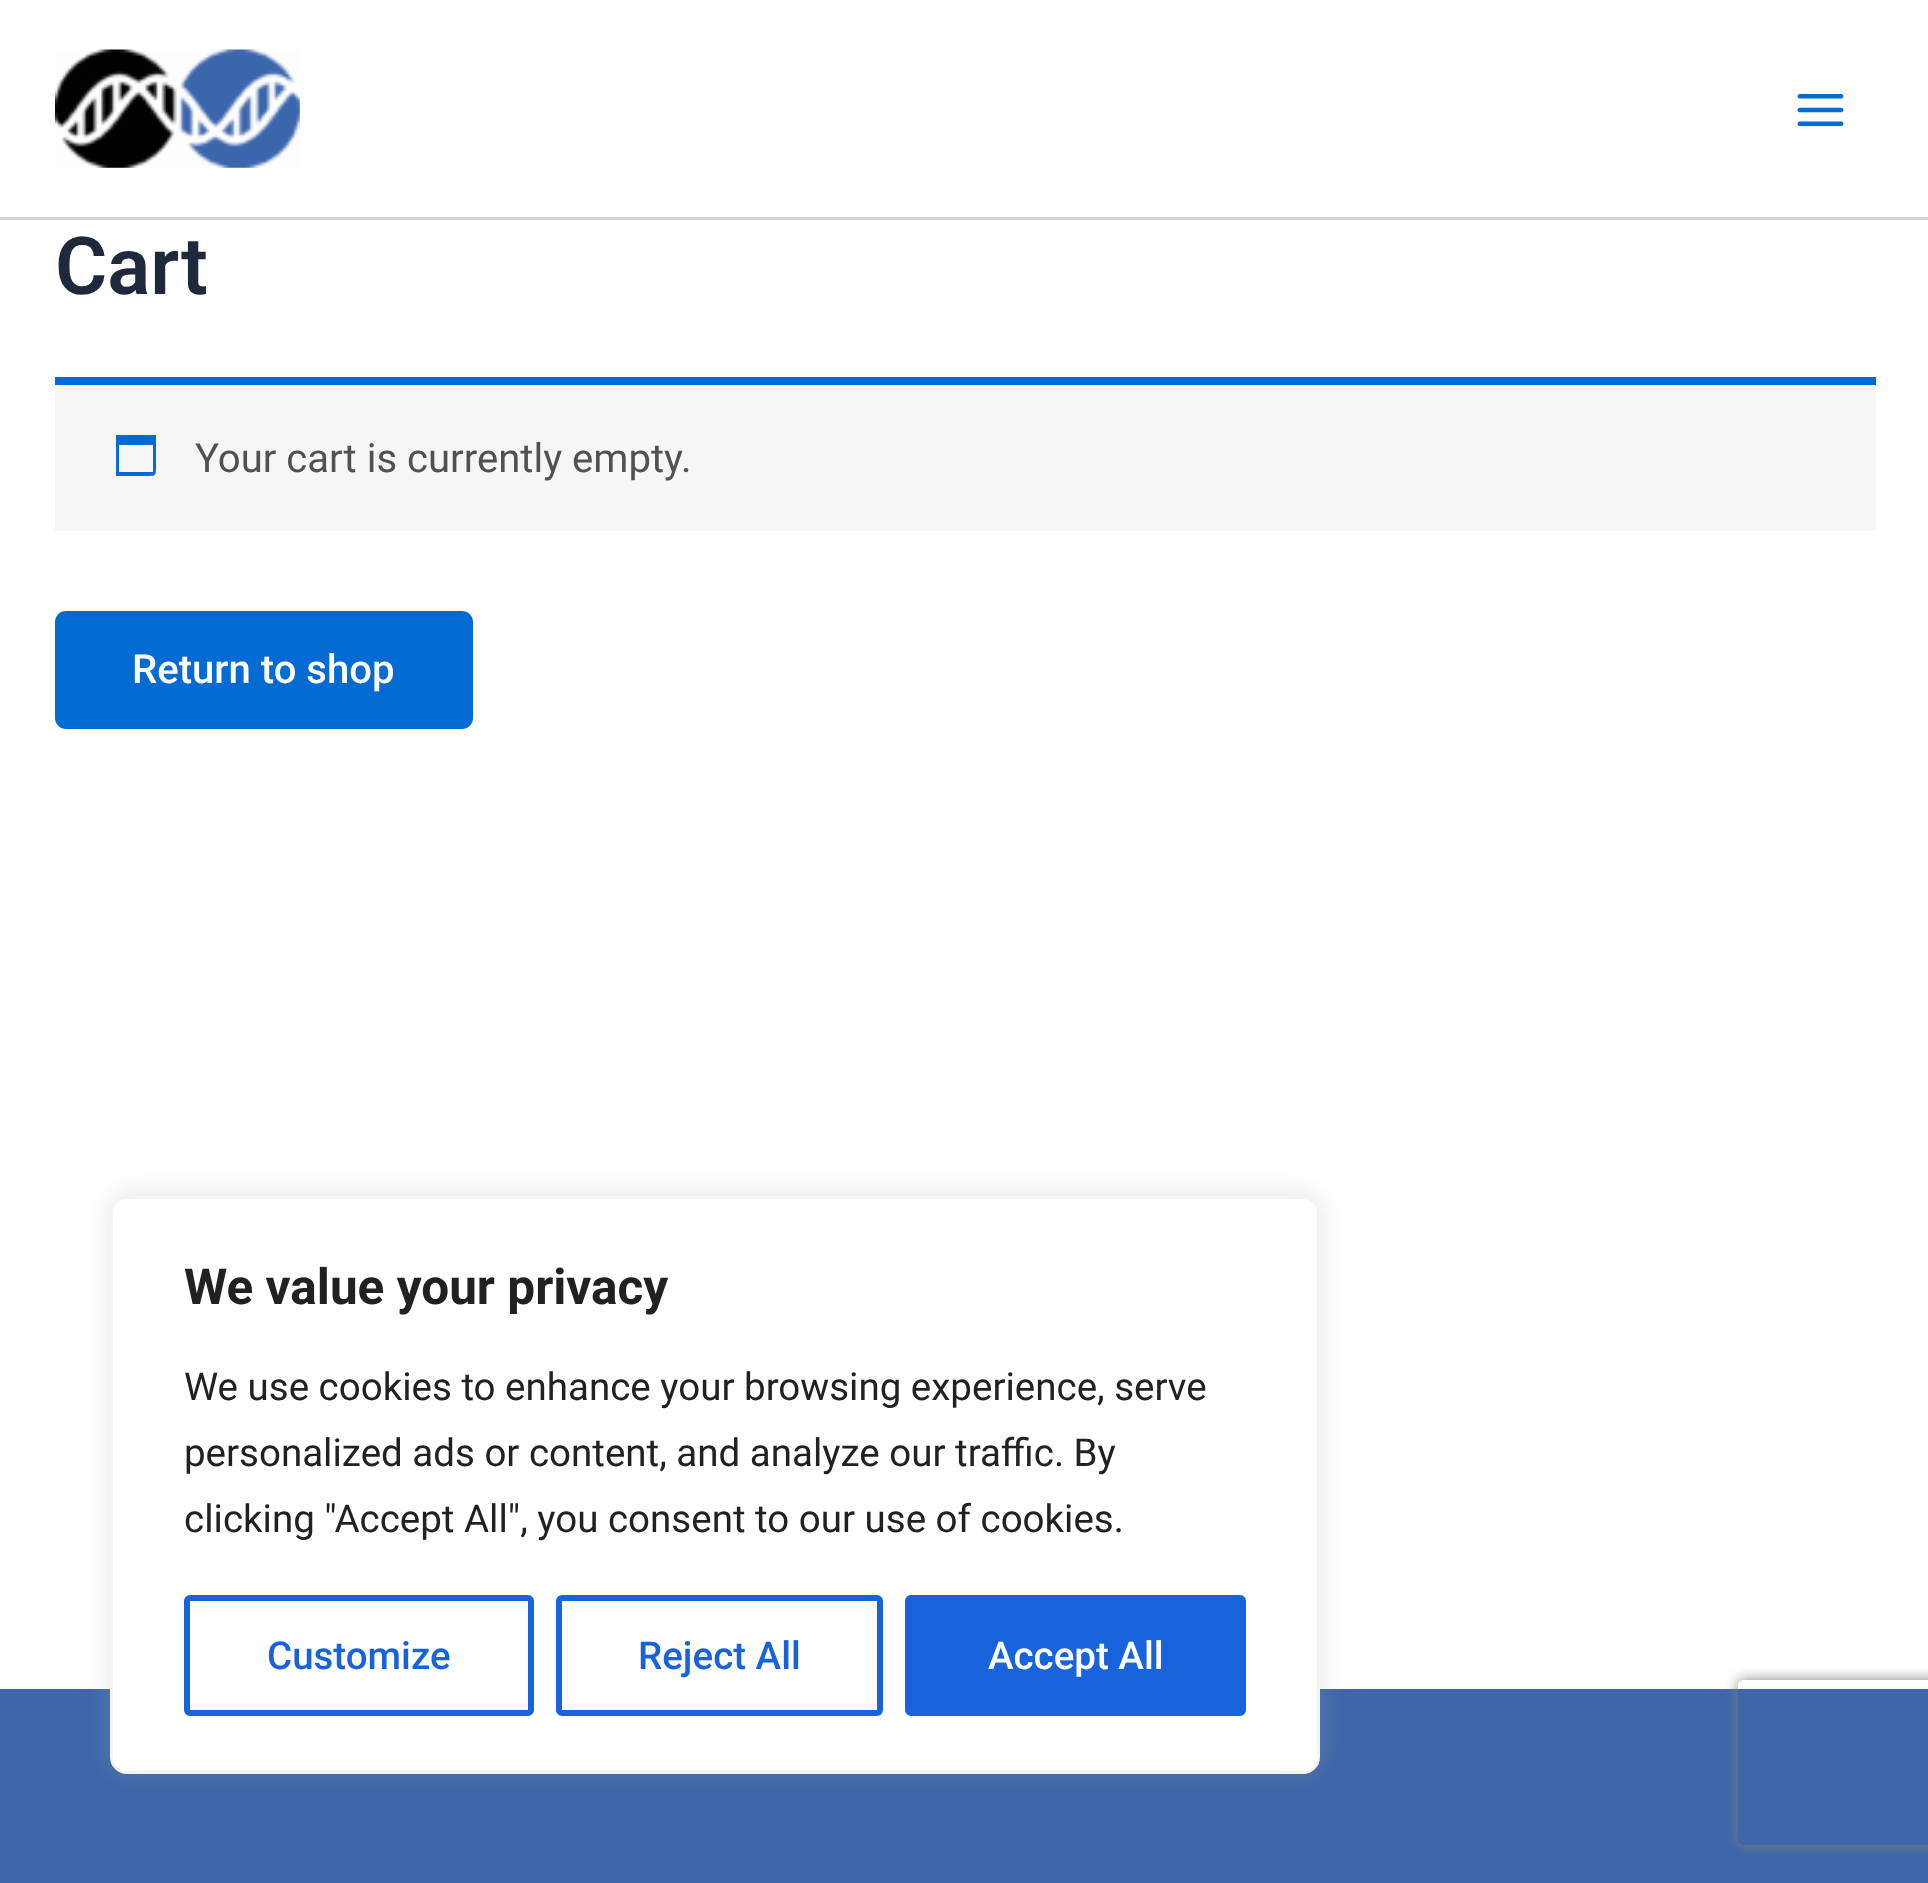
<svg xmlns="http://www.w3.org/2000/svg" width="1928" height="1883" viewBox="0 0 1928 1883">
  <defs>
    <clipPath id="clip1"><path d="M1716 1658H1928V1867H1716ZM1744 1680H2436C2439.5 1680 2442 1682.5 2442 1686V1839C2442 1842.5 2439.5 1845 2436 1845H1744C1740.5 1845 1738 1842.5 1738 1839V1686C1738 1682.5 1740.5 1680 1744 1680Z" clip-rule="evenodd"/></clipPath>
  </defs>
  <rect width="100%" height="100%" fill="rgb(255,255,255)"/>
  <rect x="0" y="217" width="1928" height="3" fill="rgb(209,213,219)"/>
  <image x="55" y="49" width="245" height="119" href="pic1.png"/>
  <image x="1797" y="93" width="47" height="34" href="pic2.png"/>
  <text x="55" y="294" font-family="Roboto" font-size="80" font-weight="600" fill="rgb(30,41,59)">Cart</text>
  <rect x="55" y="385" width="1821" height="146" fill="rgb(247,246,247)"/>
  <rect x="55" y="377" width="1821" height="8" fill="rgb(4,107,210)"/>
  <path d="M153 445H119V472H153ZM156 435V466C156 476 156 476 146 476H116V435Z" fill="rgb(4,107,210)"/>
  <text x="195" y="472" font-family="Roboto" font-size="40.1" fill="rgb(81,81,81)">Your cart is currently empty.</text>
  <rect x="55" y="611" width="418" height="118" rx="11" fill="rgb(4,107,210)"/>
  <text x="132" y="683" font-family="Roboto" font-size="40.1" font-weight="500" fill="rgb(255,255,255)">Return to shop</text>
  <rect x="0" y="1689" width="1928" height="194" fill="rgb(62,102,169)"/>
  <rect x="110" y="1194" width="1210" height="577" rx="17" fill="rgba(172,171,171,0.3)" filter="blur(14px)"/>
  <rect x="111.5" y="1197.5" width="1207" height="575" rx="15.5" fill="rgb(255,255,255)" stroke="rgb(244,244,244)" stroke-width="3"/>
  <text x="184" y="1304" font-family="Roboto" font-size="49.5" font-weight="bold" fill="rgb(33,33,33)">We value your privacy</text>
  <g font-family="Roboto" font-size="38.5" fill="rgb(33,33,33)">
    <text>
      <tspan x="184" y="1400">We use cookies to enhance your browsing experience, serve</tspan>
      <tspan x="184" y="1466">personalized ads or content, and analyze our traffic. By</tspan>
      <tspan x="184" y="1532">clicking "Accept All", you consent to our use of cookies.</tspan>
    </text>
  </g>
  <rect x="187" y="1598" width="344" height="115" rx="3" fill="none" stroke="rgb(24,99,220)" stroke-width="6"/>
  <text x="267" y="1669" font-family="Roboto" font-size="38.5" font-weight="500" fill="rgb(24,99,220)">Customize</text>
  <rect x="559" y="1598" width="321" height="115" rx="3" fill="none" stroke="rgb(24,99,220)" stroke-width="6"/>
  <text x="638" y="1669" font-family="Roboto" font-size="38.5" font-weight="500" fill="rgb(24,99,220)">Reject All</text>
  <rect x="908" y="1598" width="335" height="115" rx="3" fill="rgb(24,99,220)" stroke="rgb(24,99,220)" stroke-width="6"/>
  <text x="988" y="1669" font-family="Roboto" font-size="38.5" font-weight="500" fill="rgb(255,255,255)">Accept All</text>
  <g clip-path="url(#clip1)">
    <rect x="1738" y="1680" width="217" height="165" rx="6" fill="rgb(128,128,128)" filter="blur(7px)"/>
  </g>
</svg>
